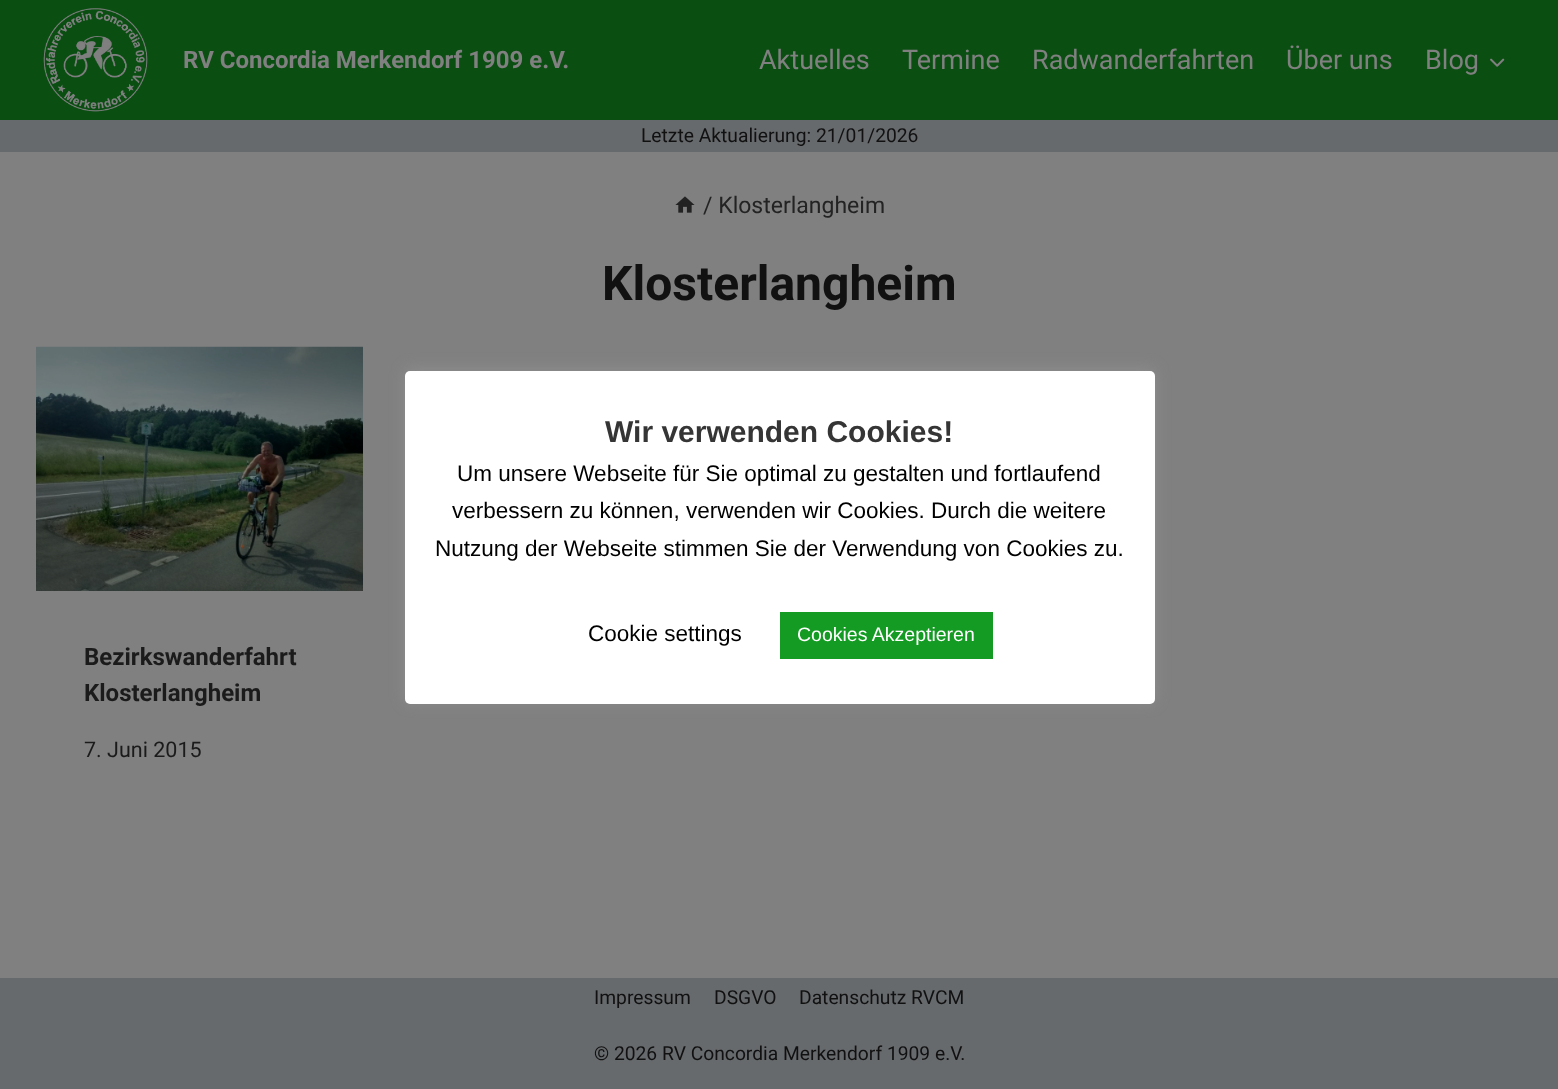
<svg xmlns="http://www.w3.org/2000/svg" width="1558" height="1089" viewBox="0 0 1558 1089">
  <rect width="100%" height="100%" fill="rgb(128,128,128)"/>
  <rect x="0" y="0" width="1558" height="120" fill="rgb(10,78,18)"/>
  <image x="43" y="8" width="105" height="104" href="pic1.png"/>
  <text x="183" y="68" font-family="Roboto" font-size="24" font-weight="bold" fill="rgb(128,128,128)">RV Concordia Merkendorf 1909 e.V.</text>
  <g font-family="Roboto" font-size="27" fill="rgb(128,128,128)">
    <text x="759" y="69">Aktuelles</text>
    <text x="902" y="69">Termine</text>
    <text x="1032" y="69">Radwanderfahrten</text>
    <text x="1286" y="69">Über uns</text>
    <text x="1425" y="69">Blog</text>
  </g>
  <image x="1490" y="58" width="15" height="9" href="pic2.png"/>
  <rect x="0" y="120" width="1558" height="32" fill="rgb(103,106,109)"/>
  <text x="641" y="142" font-family="Roboto" font-size="19.25" fill="rgb(17,17,17)">Letzte Aktualierung: 21/01/2026</text>
  <image x="675" y="196" width="20" height="17" href="pic3.png"/>
  <text x="703" y="213" font-family="Roboto" font-size="23" fill="rgb(35,35,35)">/ Klosterlangheim</text>
  <text x="602" y="300" font-family="Roboto" font-size="48" font-weight="bold" fill="rgb(17,17,17)">Klosterlangheim</text>
  <image x="36" y="346" width="327" height="245" href="pic4.png"/>
  <g font-family="Roboto" font-size="24" font-weight="bold" fill="rgb(27,27,27)">
    <text>
      <tspan x="84" y="665">Bezirkswanderfahrt</tspan>
      <tspan x="84" y="701">Klosterlangheim</tspan>
    </text>
  </g>
  <text x="84" y="757" font-family="Roboto" font-size="21.5" fill="rgb(27,27,27)">7. Juni 2015</text>
  <rect x="0" y="978" width="1558" height="111" fill="rgb(103,106,109)"/>
  <g font-family="Roboto" font-size="19.25" fill="rgb(17,17,17)">
    <text x="594" y="1004">Impressum</text>
    <text x="714" y="1004">DSGVO</text>
    <text x="799" y="1004">Datenschutz RVCM</text>
    <text x="594" y="1060">© 2026 RV Concordia Merkendorf 1909 e.V.</text>
  </g>
  <rect x="405" y="369" width="750" height="333" rx="5" fill="rgba(172,171,171,0.3)" filter="blur(7.5px)"/>
  <rect x="405" y="371" width="750" height="333" rx="5" fill="rgb(255,255,255)"/>
  <text x="605" y="442" font-family="Liberation Sans" font-size="30" font-weight="bold" fill="rgb(53,53,53)">Wir verwenden Cookies!</text>
  <g font-family="Liberation Sans" font-size="22.5" fill="rgb(0,0,0)">
    <text x="457" y="481">Um unsere Webseite für Sie optimal zu gestalten und fortlaufend</text>
    <text x="452" y="518">verbessern zu können, verwenden wir Cookies. Durch die weitere</text>
    <text x="435" y="556">Nutzung der Webseite stimmen Sie der Verwendung von Cookies zu.</text>
    <text x="588" y="641">Cookie settings</text>
  </g>
  <rect x="780" y="612" width="213" height="47" fill="rgb(20,155,35)"/>
  <text x="797" y="641" font-family="Liberation Sans" font-size="19.5" fill="rgb(255,255,255)">Cookies Akzeptieren</text>
</svg>
